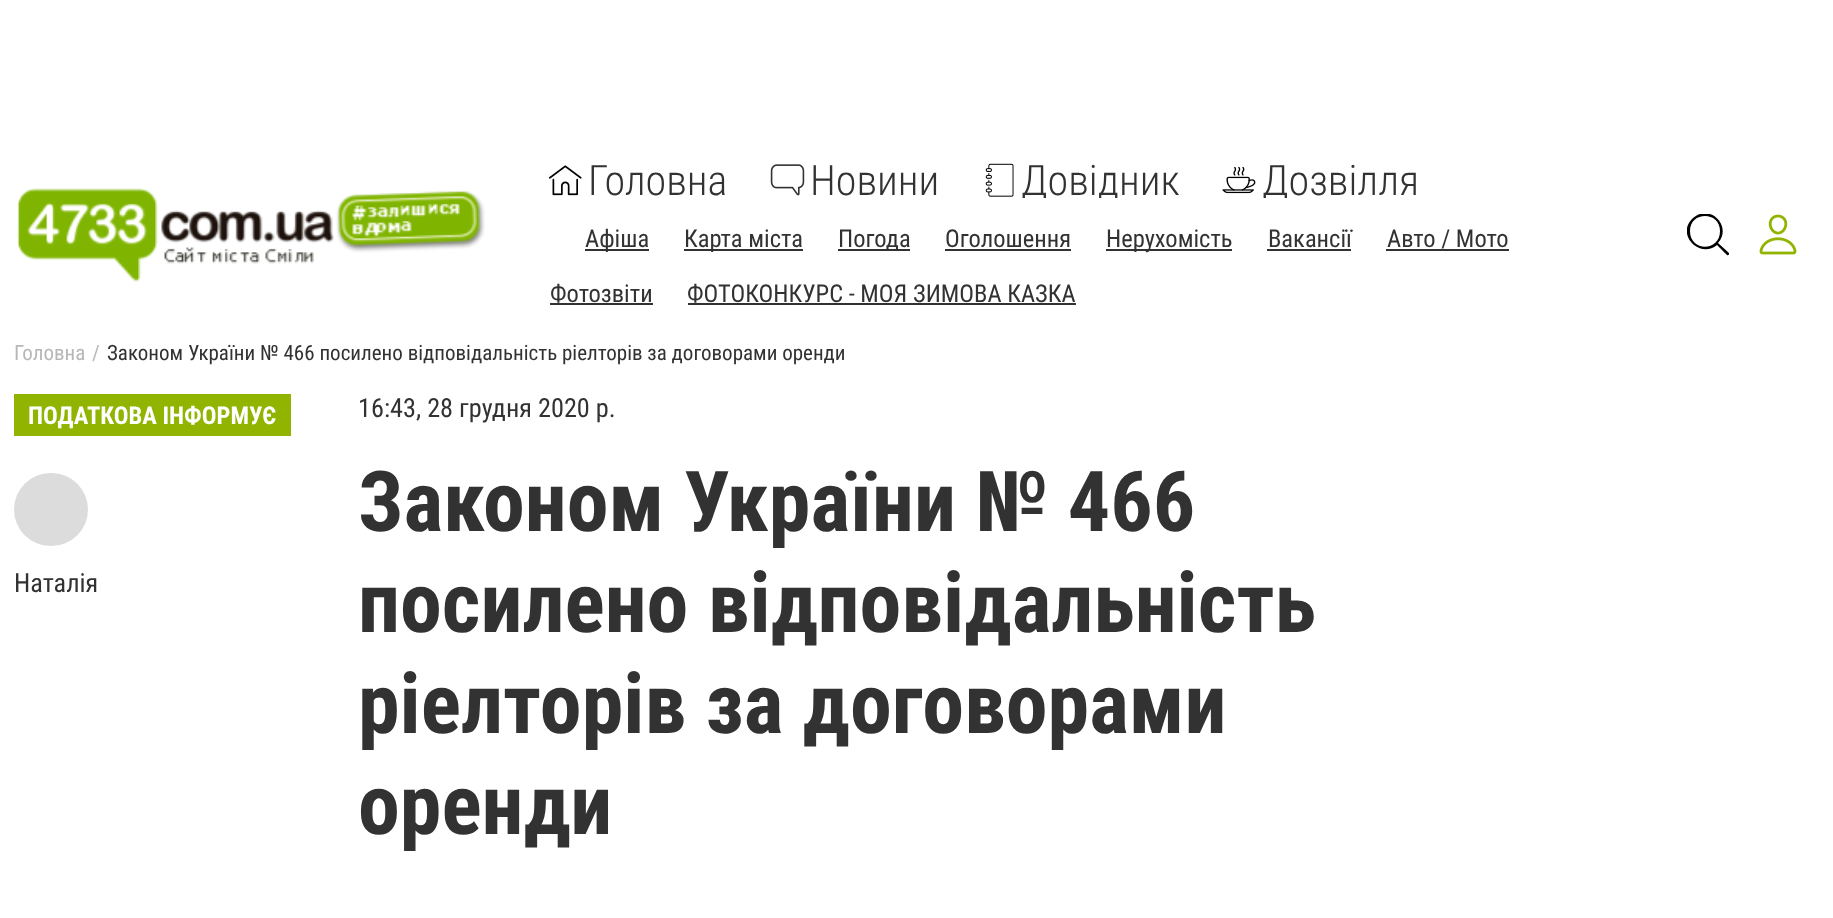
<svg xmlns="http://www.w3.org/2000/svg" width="1833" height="918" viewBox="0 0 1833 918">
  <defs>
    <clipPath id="clip1"><rect x="982" y="163" width="198" height="35"/></clipPath>
    <clipPath id="clip2"><rect x="1222" y="163" width="197" height="35"/></clipPath>
    <clipPath id="clip3"><rect x="1687" y="214" width="42" height="42"/></clipPath>
  </defs>
  <rect width="100%" height="100%" fill="rgb(255,255,255)"/>
  <image x="17" y="188" width="468" height="94" href="pic1.png"/>
  <image x="549" y="165" width="33" height="31" href="pic2.png"/>
  <text x="588" y="195" font-family="Roboto Condensed" font-size="42" font-weight="300" fill="rgb(50,50,50)">Головна</text>
  <image x="770" y="164" width="35" height="32" href="pic3.png"/>
  <text x="810" y="195" font-family="Roboto Condensed" font-size="42" font-weight="300" fill="rgb(50,50,50)">Новини</text>
  <image x="985" y="163" width="29" height="34" href="pic4.png"/>
  <g clip-path="url(#clip1)">
    <text x="1021" y="195" font-family="Roboto Condensed" font-size="42" font-weight="300" fill="rgb(50,50,50)">Довідник</text>
  </g>
  <image x="1222" y="166" width="34" height="28" href="pic5.png"/>
  <g clip-path="url(#clip2)">
    <text x="1262" y="195" font-family="Roboto Condensed" font-size="42" font-weight="300" fill="rgb(50,50,50)">Дозвілля</text>
  </g>
  <rect x="585" y="249" width="64" height="2" fill="rgb(50,50,50)"/>
  <text x="585" y="247" font-family="Roboto Condensed" font-size="24.5" fill="rgb(50,50,50)">Афіша</text>
  <rect x="684" y="249" width="119" height="2" fill="rgb(50,50,50)"/>
  <text x="684" y="247" font-family="Roboto Condensed" font-size="24.5" fill="rgb(50,50,50)">Карта міста</text>
  <rect x="838" y="249" width="72" height="2" fill="rgb(50,50,50)"/>
  <g font-family="Roboto Condensed" font-size="24.5" fill="rgb(50,50,50)">
    <text x="838" y="247">Погода</text>
    <text x="945" y="247">Оголошення</text>
  </g>
  <rect x="945" y="249" width="126" height="2" fill="rgb(50,50,50)"/>
  <rect x="1106" y="249" width="126" height="2" fill="rgb(50,50,50)"/>
  <g font-family="Roboto Condensed" font-size="24.5" fill="rgb(50,50,50)">
    <text x="1106" y="247">Нерухомість</text>
    <text x="1268" y="247">Вакансії</text>
  </g>
  <rect x="1267" y="249" width="84" height="2" fill="rgb(50,50,50)"/>
  <text x="1387" y="247" font-family="Roboto Condensed" font-size="24.5" fill="rgb(50,50,50)">Авто / Мото</text>
  <rect x="1386" y="249" width="123" height="2" fill="rgb(50,50,50)"/>
  <text x="550" y="302" font-family="Roboto Condensed" font-size="24.5" fill="rgb(50,50,50)">Фотозвіти</text>
  <rect x="550" y="303" width="103" height="2" fill="rgb(50,50,50)"/>
  <text x="687" y="302" font-family="Roboto Condensed" font-size="24.5" fill="rgb(50,50,50)">ФОТОКОНКУРС - МОЯ ЗИМОВА КАЗКА</text>
  <rect x="688" y="303" width="388" height="2" fill="rgb(50,50,50)"/>
  <g clip-path="url(#clip3)">
    <path d="M1729 253L1718 243C1733 226 1709 202 1692 219C1676 235 1700 259 1717 245L1727 255C1728 256 1730 254 1729 253ZM1690 231C1690 211 1720 211 1720 231C1720 252 1690 252 1690 231Z" fill="rgb(0,0,0)"/>
  </g>
  <image x="1759" y="214" width="38" height="41" href="pic6.png"/>
  <g font-family="Roboto Condensed" font-size="21" fill="rgb(183,183,183)">
    <text x="14" y="360">Головна</text>
    <text x="92" y="360">/</text>
  </g>
  <text x="107" y="360" font-family="Roboto Condensed" font-size="21" fill="rgb(50,50,50)">Законом України № 466 посилено відповідальність ріелторів за договорами оренди</text>
  <rect x="14" y="394" width="277" height="42" fill="rgb(144,180,0)"/>
  <text x="28" y="424" font-family="Roboto Condensed" font-size="24.5" font-weight="bold" fill="rgb(255,255,255)">ПОДАТКОВА ІНФОРМУЄ</text>
  <rect x="14" y="473" width="74" height="73" rx="36.5" fill="rgb(220,220,220)"/>
  <g font-family="Roboto Condensed" font-size="26.25" fill="rgb(50,50,50)">
    <text x="14" y="592">Наталія</text>
    <text x="358" y="417">16:43, 28 грудня 2020 р.</text>
  </g>
  <g font-family="Roboto Condensed" font-size="84" font-weight="bold" fill="rgb(50,50,50)">
    <text>
      <tspan x="358" y="531">Законом України № 466</tspan>
      <tspan x="358" y="632">посилено відповідальність</tspan>
      <tspan x="358" y="733">ріелторів за договорами</tspan>
      <tspan x="358" y="834">оренди</tspan>
    </text>
  </g>
</svg>
